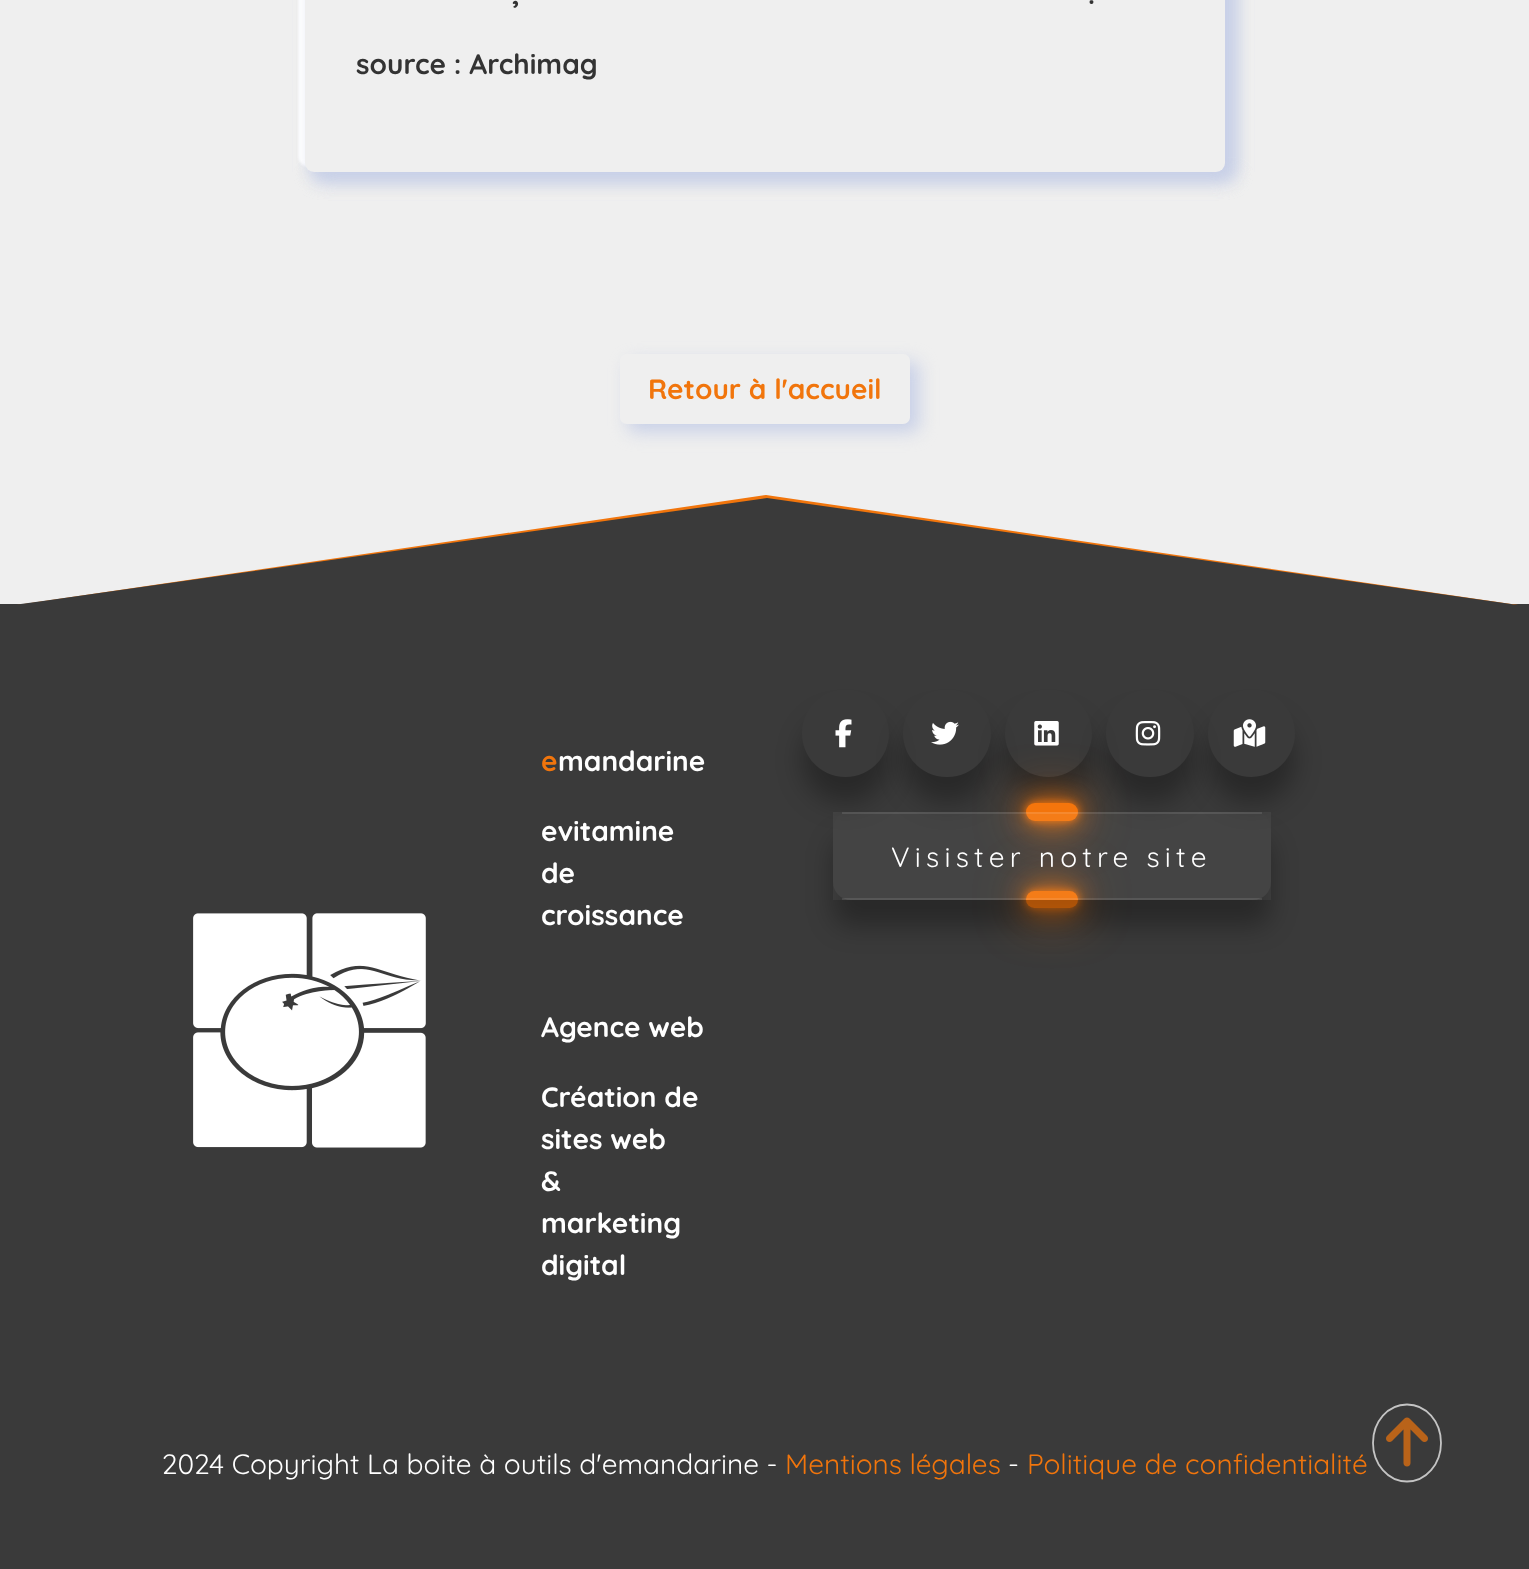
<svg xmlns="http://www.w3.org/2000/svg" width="1529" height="1569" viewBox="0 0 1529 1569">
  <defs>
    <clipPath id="clip1"><path d="M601 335H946V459H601ZM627 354H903C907 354 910 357 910 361V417C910 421 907 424 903 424H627C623 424 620 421 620 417V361C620 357 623 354 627 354Z" clip-rule="evenodd"/></clipPath>
    <clipPath id="clip2"><path d="M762 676H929V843H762ZM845.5 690C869.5 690 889 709.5 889 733.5C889 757.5 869.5 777 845.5 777C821.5 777 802 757.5 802 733.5C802 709.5 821.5 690 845.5 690Z" clip-rule="evenodd"/></clipPath>
    <clipPath id="clip3"><path d="M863 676H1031V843H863ZM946.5 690H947.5C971.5 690 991 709.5 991 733.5C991 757.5 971.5 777 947.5 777H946.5C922.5 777 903 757.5 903 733.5C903 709.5 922.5 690 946.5 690Z" clip-rule="evenodd"/></clipPath>
    <clipPath id="clip4"><path d="M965 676H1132V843H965ZM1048.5 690C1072.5 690 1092 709.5 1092 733.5C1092 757.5 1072.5 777 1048.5 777C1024.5 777 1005 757.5 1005 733.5C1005 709.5 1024.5 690 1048.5 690Z" clip-rule="evenodd"/></clipPath>
    <clipPath id="clip5"><path d="M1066 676H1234V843H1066ZM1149.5 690H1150.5C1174.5 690 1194 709.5 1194 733.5C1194 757.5 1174.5 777 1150.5 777H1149.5C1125.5 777 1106 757.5 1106 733.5C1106 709.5 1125.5 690 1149.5 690Z" clip-rule="evenodd"/></clipPath>
    <clipPath id="clip6"><path d="M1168 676H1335V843H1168ZM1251.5 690C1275.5 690 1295 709.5 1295 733.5C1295 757.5 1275.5 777 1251.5 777C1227.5 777 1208 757.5 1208 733.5C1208 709.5 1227.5 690 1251.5 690Z" clip-rule="evenodd"/></clipPath>
    <clipPath id="clip7"><path d="M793 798H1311V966H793ZM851 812H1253C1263 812 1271 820 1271 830V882C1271 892 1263 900 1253 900H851C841 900 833 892 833 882V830C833 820 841 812 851 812Z" clip-rule="evenodd"/></clipPath>
  </defs>
  <rect width="100%" height="100%" fill="rgb(239,239,239)"/>
  <rect x="299" y="-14" width="921" height="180" rx="9" fill="rgb(255,255,255)" filter="blur(1.5px)"/>
  <rect x="313" y="-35" width="921" height="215" rx="9" fill="rgb(200,208,231)" filter="blur(8.5px)"/>
  <rect x="299" y="-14" width="921" height="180" rx="9" fill="rgb(255,255,255)" filter="blur(1.5px)"/>
  <rect x="313" y="-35" width="921" height="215" rx="9" fill="rgb(200,208,231)" filter="blur(8.5px)"/>
  <rect x="305" y="-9" width="920" height="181" rx="9" fill="rgb(239,239,239)"/>
  <g font-family="Quicksand" font-size="28" font-weight="bold" fill="rgb(51,51,51)">
    <text x="512" y="4">,</text>
    <text x="1088" y="4">.</text>
    <text x="356" y="74">source : Archimag</text>
  </g>
  <g clip-path="url(#clip1)">
    <rect x="628" y="362" width="291" height="70" rx="7" fill="rgb(200,208,231)" filter="blur(8.5px)"/>
  </g>
  <text x="648" y="399" font-family="Quicksand" font-size="28" font-weight="bold" fill="rgb(241,117,12)">Retour à l'accueil</text>
  <rect x="0" y="604" width="1529" height="965" fill="rgb(58,58,58)"/>
  <path d="M17 605L766 495L1518 605Z" fill="rgb(241,117,12)"/>
  <path d="M43 601L767 498L1511 604C1522 606 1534 606 1509 606H6Z" fill="rgb(58,58,58)"/>
  <image x="193" y="913" width="233" height="235" href="pic1.png"/>
  <text x="541" y="771" font-family="Quicksand" font-size="28" font-weight="bold" fill="rgb(241,117,12)">e</text>
  <g font-family="Quicksand" font-size="28" font-weight="bold" fill="rgb(255,255,255)">
    <text x="558" y="771">mandarine</text>
    <text>
      <tspan x="541" y="841">evitamine</tspan>
      <tspan x="541" y="883">de</tspan>
      <tspan x="541" y="925">croissance</tspan>
    </text>
    <text x="541" y="1037">Agence web</text>
    <text>
      <tspan x="541" y="1107">Création de</tspan>
      <tspan x="541" y="1149">sites web</tspan>
      <tspan x="541" y="1191">&amp;</tspan>
      <tspan x="541" y="1233">marketing</tspan>
      <tspan x="541" y="1275">digital</tspan>
    </text>
  </g>
  <g clip-path="url(#clip2)">
    <rect x="802" y="716" width="87" height="87" rx="43.5" fill="rgba(0,0,0,0.3)" filter="blur(13px)"/>
  </g>
  <image x="835" y="719" width="17" height="29" href="pic2.png"/>
  <g clip-path="url(#clip3)">
    <rect x="903" y="716" width="88" height="87" rx="43.5" fill="rgba(0,0,0,0.3)" filter="blur(13px)"/>
  </g>
  <image x="931" y="721" width="28" height="24" href="pic3.png"/>
  <g clip-path="url(#clip4)">
    <rect x="1005" y="716" width="87" height="87" rx="43.5" fill="rgba(0,0,0,0.3)" filter="blur(13px)"/>
  </g>
  <image x="1034" y="721" width="25" height="25" href="pic4.png"/>
  <g clip-path="url(#clip5)">
    <rect x="1106" y="716" width="88" height="87" rx="43.5" fill="rgba(0,0,0,0.3)" filter="blur(13px)"/>
  </g>
  <image x="1135" y="721" width="26" height="25" href="pic5.png"/>
  <g clip-path="url(#clip6)">
    <rect x="1208" y="716" width="87" height="87" rx="43.5" fill="rgba(0,0,0,0.3)" filter="blur(13px)"/>
  </g>
  <image x="1233" y="719" width="33" height="28" href="pic6.png"/>
  <rect x="1026" y="891" width="52" height="17" rx="8.5" fill="rgb(244,117,12)" filter="blur(26px)"/>
  <rect x="1026" y="891" width="52" height="17" rx="8.5" fill="rgb(244,117,12)" filter="blur(13px)"/>
  <rect x="1026" y="891" width="52" height="17" rx="8.5" fill="rgb(244,117,12)" filter="blur(4.5px)"/>
  <rect x="1026" y="891" width="52" height="17" rx="8.5" fill="rgb(244,117,12)"/>
  <rect x="1026" y="803" width="52" height="18" rx="9" fill="rgb(244,117,12)" filter="blur(26px)"/>
  <rect x="1026" y="803" width="52" height="18" rx="9" fill="rgb(244,117,12)" filter="blur(13px)"/>
  <rect x="1026" y="803" width="52" height="18" rx="9" fill="rgb(244,117,12)" filter="blur(4.5px)"/>
  <rect x="1026" y="803" width="52" height="18" rx="9" fill="rgb(244,117,12)"/>
  <g clip-path="url(#clip7)">
    <rect x="833" y="838" width="438" height="88" rx="18" fill="rgba(0,0,0,0.3)" filter="blur(13px)"/>
  </g>
  <rect x="833" y="812" width="438" height="88" fill="rgba(255,255,255,0.05)"/>
  <rect x="842" y="812" width="420" height="2" fill="rgba(255,255,255,0.1)"/>
  <rect x="842" y="898" width="420" height="2" fill="rgba(255,255,255,0.1)"/>
  <text x="891" y="867" font-family="Quicksand" font-size="28" letter-spacing="5.25" fill="rgb(255,255,255)">Visister notre site</text>
  <text x="162" y="1474" font-family="Quicksand" font-size="28" fill="rgb(255,255,255)">2024 Copyright La boite à outils d'emandarine -</text>
  <text x="785" y="1474" font-family="Quicksand" font-size="28" fill="rgb(241,117,12)">Mentions légales</text>
  <text x="1008" y="1474" font-family="Quicksand" font-size="28" fill="rgb(255,255,255)">-</text>
  <text x="1027" y="1474" font-family="Quicksand" font-size="28" fill="rgb(241,117,12)">Politique de confidentialité</text>
  <path d="M1407 1404.5C1426 1404.5 1441 1421.5 1441 1443C1441 1464 1426 1481.5 1407 1481.5C1388 1481.5 1373 1464 1373 1443C1373 1421.5 1388 1404.5 1407 1404.5Z" fill="none" stroke="rgb(196,196,196)" stroke-width="1.8"/>
  <image x="1386" y="1417" width="42" height="50" href="pic7.png"/>
</svg>
